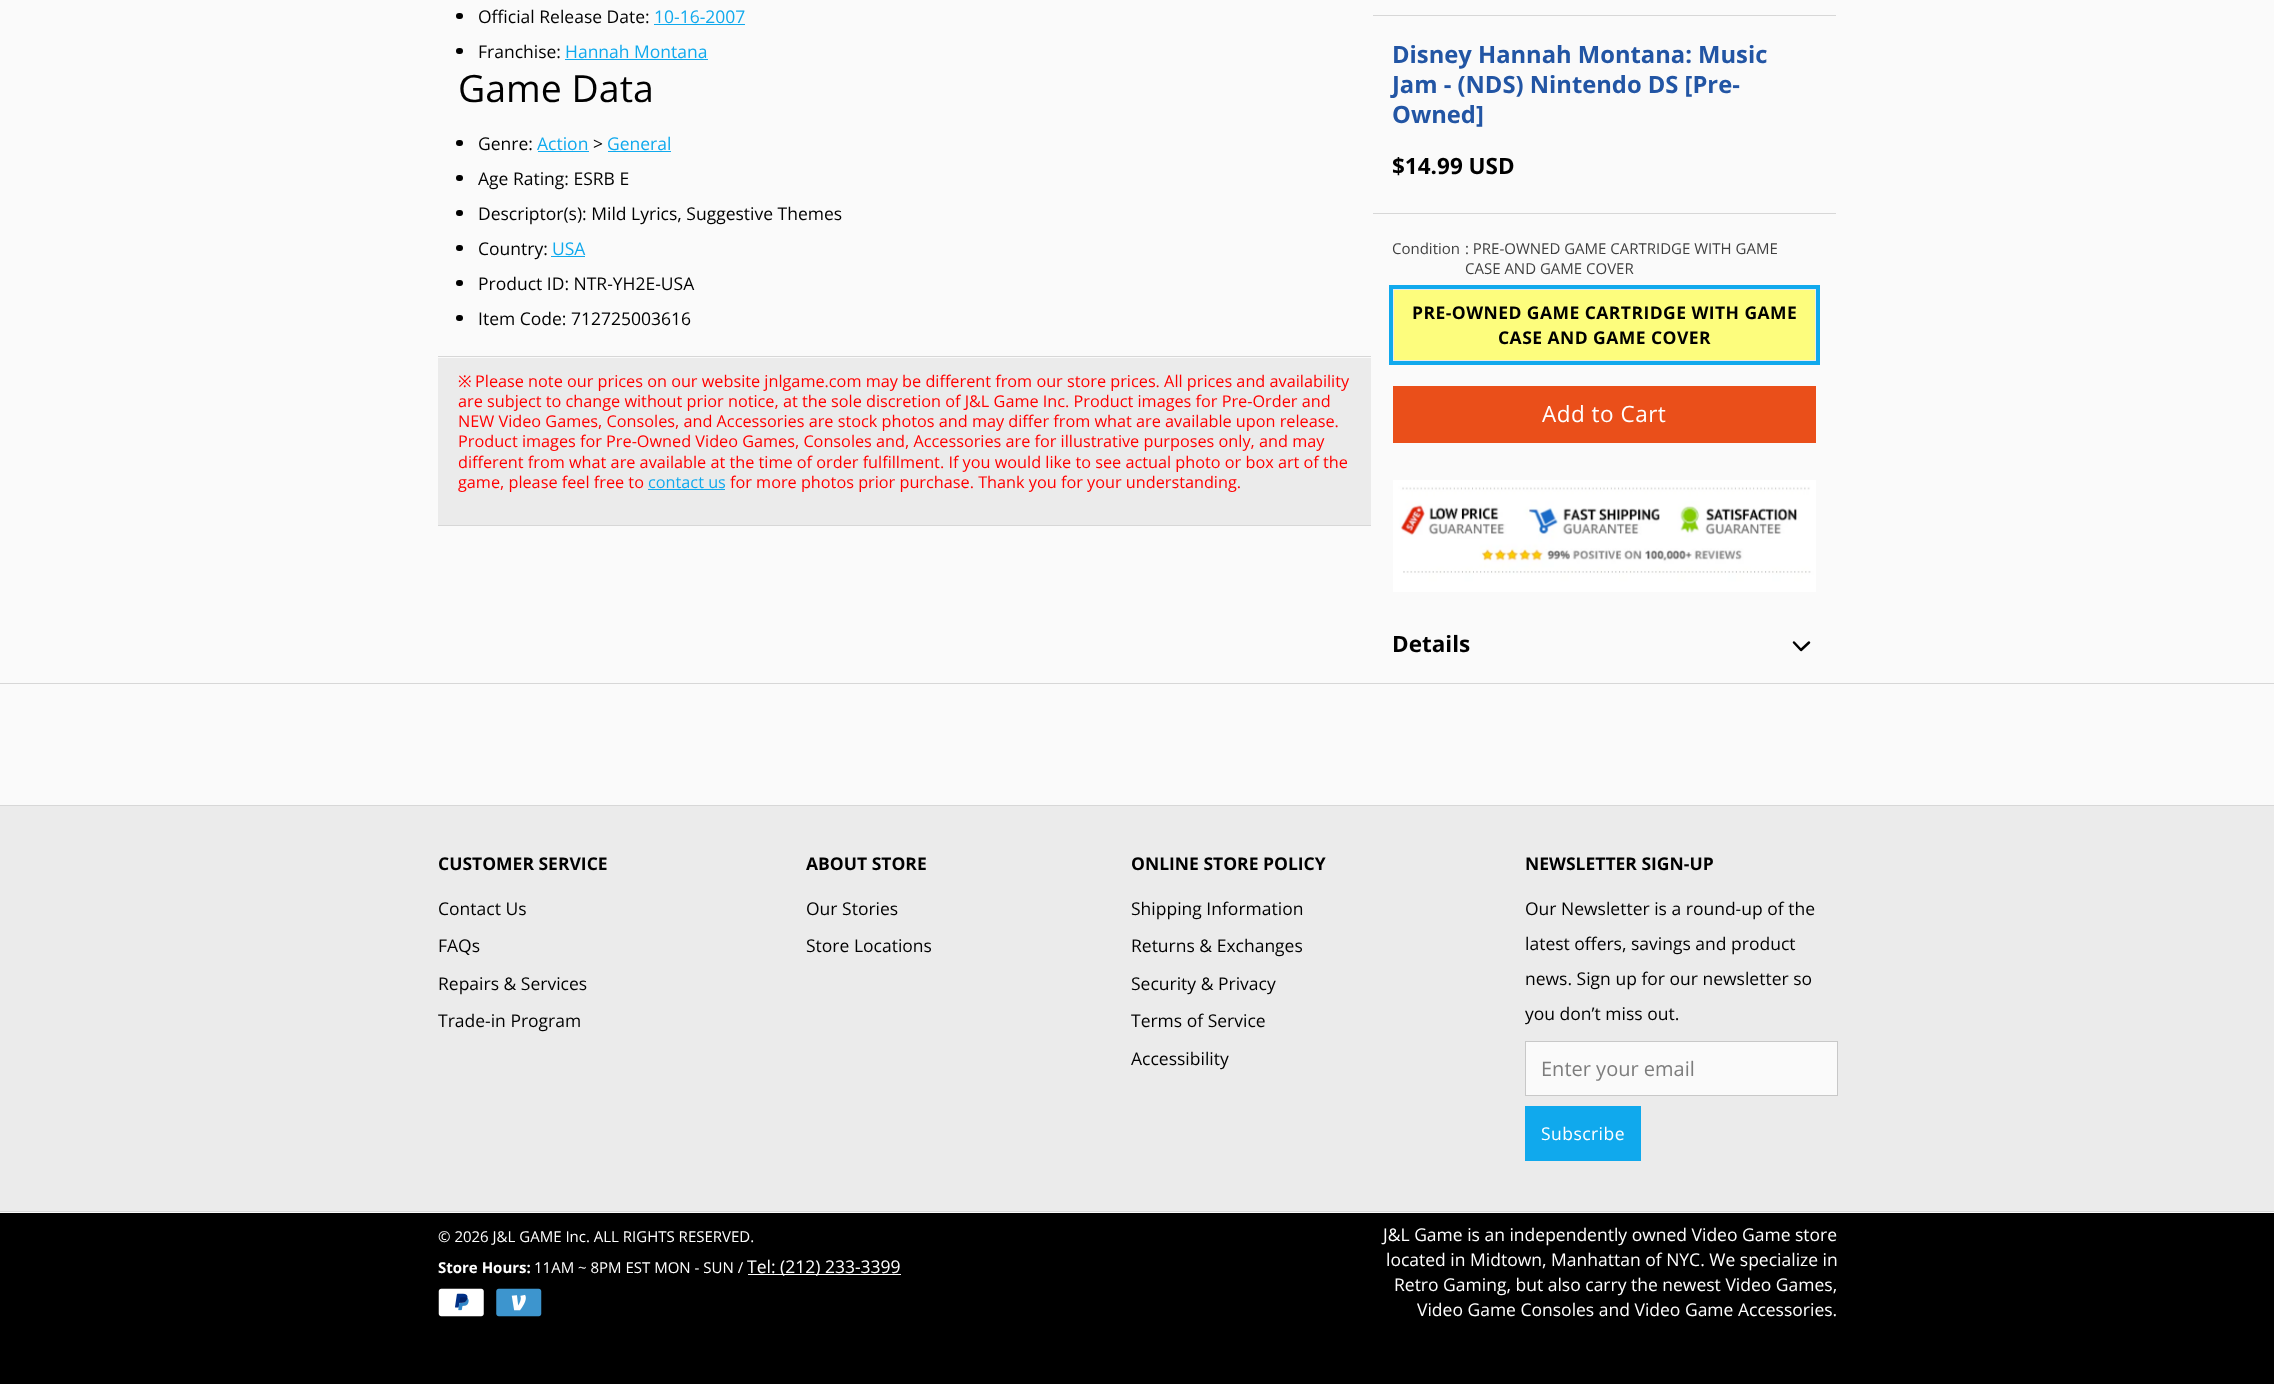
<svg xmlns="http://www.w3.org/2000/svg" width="2274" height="1384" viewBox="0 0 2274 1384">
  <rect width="100%" height="100%" fill="rgb(250,250,250)"/>
  <rect x="456" y="13" width="7" height="6" rx="3" fill="rgb(0,0,0)"/>
  <text x="478" y="23" font-family="Open Sans" font-size="17.5" fill="rgb(0,0,0)">Official Release Date:</text>
  <text x="654" y="23" font-family="Open Sans" font-size="17.5" fill="rgb(16,169,237)">10-16-2007</text>
  <rect x="654" y="24" width="91" height="1" fill="rgb(16,169,237)"/>
  <rect x="456" y="48" width="7" height="6" rx="3" fill="rgb(0,0,0)"/>
  <text x="478" y="58" font-family="Open Sans" font-size="17.5" fill="rgb(0,0,0)">Franchise:</text>
  <text x="565" y="58" font-family="Open Sans" font-size="17.5" fill="rgb(16,169,237)">Hannah Montana</text>
  <rect x="565" y="59" width="143" height="1" fill="rgb(16,169,237)"/>
  <text x="458" y="102" font-family="Open Sans" font-size="37.5" fill="rgb(0,0,0)">Game Data</text>
  <rect x="456" y="140" width="7" height="6" rx="3" fill="rgb(0,0,0)"/>
  <text x="478" y="150" font-family="Open Sans" font-size="17.5" fill="rgb(0,0,0)">Genre:</text>
  <text x="537" y="150" font-family="Open Sans" font-size="17.5" fill="rgb(16,169,237)">Action</text>
  <rect x="538" y="151" width="51" height="1" fill="rgb(16,169,237)"/>
  <text x="593" y="150" font-family="Open Sans" font-size="17.5" fill="rgb(0,0,0)">&gt;</text>
  <text x="607" y="150" font-family="Open Sans" font-size="17.5" fill="rgb(16,169,237)">General</text>
  <rect x="608" y="151" width="63" height="1" fill="rgb(16,169,237)"/>
  <rect x="456" y="175" width="7" height="6" rx="3" fill="rgb(0,0,0)"/>
  <text x="478" y="185" font-family="Open Sans" font-size="17.5" fill="rgb(0,0,0)">Age Rating: ESRB E</text>
  <rect x="456" y="210" width="7" height="6" rx="3" fill="rgb(0,0,0)"/>
  <text x="478" y="220" font-family="Open Sans" font-size="17.5" fill="rgb(0,0,0)">Descriptor(s): Mild Lyrics, Suggestive Themes</text>
  <rect x="456" y="245" width="7" height="6" rx="3" fill="rgb(0,0,0)"/>
  <text x="478" y="255" font-family="Open Sans" font-size="17.5" fill="rgb(0,0,0)">Country:</text>
  <text x="552" y="255" font-family="Open Sans" font-size="17.5" fill="rgb(16,169,237)">USA</text>
  <rect x="551" y="256" width="34" height="1" fill="rgb(16,169,237)"/>
  <rect x="456" y="280" width="7" height="6" rx="3" fill="rgb(0,0,0)"/>
  <text x="478" y="290" font-family="Open Sans" font-size="17.5" fill="rgb(0,0,0)">Product ID: NTR-YH2E-USA</text>
  <rect x="456" y="315" width="7" height="6" rx="3" fill="rgb(0,0,0)"/>
  <text x="478" y="325" font-family="Open Sans" font-size="17.5" fill="rgb(0,0,0)">Item Code: 712725003616</text>
  <rect x="438" y="358" width="933" height="167" fill="rgb(235,235,235)"/>
  <rect x="438" y="356" width="933" height="1" fill="rgb(215,215,215)"/>
  <rect x="438" y="525" width="933" height="1" fill="rgb(215,215,215)"/>
  <text x="458" y="387" font-family="Noto Sans" font-size="16.25" fill="rgb(255,0,0)">※</text>
  <g font-family="Open Sans" font-size="16.25" fill="rgb(255,0,0)">
    <text x="475" y="387">Please note our prices on our website jnlgame.com may be different from our store prices. All prices and availability</text>
    <text>
      <tspan x="458" y="407">are subject to change without prior notice, at the sole discretion of J&amp;L Game Inc. Product images for Pre-Order and</tspan>
      <tspan x="458" y="427">NEW Video Games, Consoles, and Accessories are stock photos and may differ from what are available upon release.</tspan>
      <tspan x="458" y="447">Product images for Pre-Owned Video Games, Consoles and, Accessories are for illustrative purposes only, and may</tspan>
      <tspan x="458" y="468">different from what are available at the time of order fulfillment. If you would like to see actual photo or box art of the</tspan>
      <tspan x="458" y="488">game, please feel free to</tspan>
    </text>
  </g>
  <text x="648" y="488" font-family="Open Sans" font-size="16.25" fill="rgb(16,169,237)">contact us</text>
  <rect x="648" y="489" width="77" height="1" fill="rgb(16,169,237)"/>
  <text x="730" y="488" font-family="Open Sans" font-size="16.25" fill="rgb(255,0,0)">for more photos prior purchase. Thank you for your understanding.</text>
  <rect x="1373" y="15" width="463" height="1" fill="rgb(215,215,215)"/>
  <g font-family="Open Sans" font-size="23.75" font-weight="bold" fill="rgb(34,85,164)">
    <text>
      <tspan x="1392" y="63">Disney Hannah Montana: Music</tspan>
      <tspan x="1392" y="93">Jam - (NDS) Nintendo DS [Pre-</tspan>
      <tspan x="1392" y="123">Owned]</tspan>
    </text>
  </g>
  <rect x="1373" y="213" width="463" height="1" fill="rgb(215,215,215)"/>
  <text x="1392" y="174" font-family="Open Sans" font-size="22.5" font-weight="bold" fill="rgb(0,0,0)">$14.99 USD</text>
  <g font-family="Open Sans" font-size="15" fill="rgb(63,63,63)">
    <text x="1392" y="254">Condition</text>
    <text>
      <tspan x="1465" y="254">: PRE-OWNED GAME CARTRIDGE WITH GAME</tspan>
      <tspan x="1465" y="274">CASE AND GAME COVER</tspan>
    </text>
  </g>
  <rect x="1391" y="287" width="427" height="76" fill="none" stroke="rgb(16,169,237)" stroke-width="4"/>
  <rect x="1393.5" y="289.5" width="422" height="71" fill="rgb(253,253,125)" stroke="rgb(235,235,235)"/>
  <g font-family="Open Sans" font-size="17.5" font-weight="bold" letter-spacing="0.45" fill="rgb(0,0,0)">
    <text x="1412" y="319">PRE-OWNED GAME CARTRIDGE WITH GAME</text>
    <text x="1498" y="344">CASE AND GAME COVER</text>
  </g>
  <rect x="1393" y="386" width="423" height="57" fill="rgb(234,79,26)"/>
  <text x="1542" y="422" font-family="Open Sans" font-size="22.5" letter-spacing="0.5" fill="rgb(255,255,255)">Add to Cart</text>
  <image x="1393" y="480" width="423" height="112" href="pic1.png"/>
  <text x="1392" y="652" font-family="Open Sans" font-size="22.5" font-weight="bold" fill="rgb(0,0,0)">Details</text>
  <path d="M1794 642.5L1801 650L1809 642.5" fill="none" stroke="rgb(0,0,0)" stroke-width="2.5" stroke-linecap="round" stroke-linejoin="round"/>
  <rect x="0" y="683" width="2274" height="1" fill="rgb(215,215,215)"/>
  <rect x="0" y="806" width="2274" height="405" fill="rgb(235,235,235)"/>
  <rect x="0" y="805" width="2274" height="1" fill="rgb(215,215,215)"/>
  <text x="438" y="870" font-family="Open Sans" font-size="17.5" font-weight="bold" fill="rgb(0,0,0)">CUSTOMER SERVICE</text>
  <g font-family="Open Sans" font-size="17.5" fill="rgb(0,0,0)">
    <text x="438" y="915">Contact Us</text>
    <text x="438" y="952">FAQs</text>
    <text x="438" y="990">Repairs &amp; Services</text>
    <text x="438" y="1027">Trade-in Program</text>
  </g>
  <text x="806" y="870" font-family="Open Sans" font-size="17.5" font-weight="bold" fill="rgb(0,0,0)">ABOUT STORE</text>
  <g font-family="Open Sans" font-size="17.5" fill="rgb(0,0,0)">
    <text x="806" y="915">Our Stories</text>
    <text x="806" y="952">Store Locations</text>
  </g>
  <text x="1131" y="870" font-family="Open Sans" font-size="17.5" font-weight="bold" fill="rgb(0,0,0)">ONLINE STORE POLICY</text>
  <g font-family="Open Sans" font-size="17.5" fill="rgb(0,0,0)">
    <text x="1131" y="915">Shipping Information</text>
    <text x="1131" y="952">Returns &amp; Exchanges</text>
    <text x="1131" y="990">Security &amp; Privacy</text>
    <text x="1131" y="1027">Terms of Service</text>
    <text x="1131" y="1065">Accessibility</text>
  </g>
  <text x="1525" y="870" font-family="Open Sans" font-size="17.5" font-weight="bold" fill="rgb(0,0,0)">NEWSLETTER SIGN-UP</text>
  <g font-family="Open Sans" font-size="17.5" fill="rgb(0,0,0)">
    <text x="1525" y="915">Our Newsletter is a round-up of the</text>
    <text x="1525" y="950">latest offers, savings and product</text>
    <text x="1525" y="985">news. Sign up for our newsletter so</text>
    <text x="1525" y="1020">you don’t miss out.</text>
  </g>
  <rect x="1525.5" y="1041.5" width="312" height="54" fill="rgb(250,250,250)" stroke="rgb(200,200,200)"/>
  <text x="1541" y="1076" font-family="Open Sans" font-size="20" fill="rgb(125,125,125)">Enter your email</text>
  <rect x="1525" y="1106" width="116" height="55" fill="rgb(16,169,237)"/>
  <text x="1541" y="1140" font-family="Open Sans" font-size="17.5" letter-spacing="0.45" fill="rgb(255,255,255)">Subscribe</text>
  <rect x="0" y="1213" width="2274" height="171" fill="rgb(0,0,0)"/>
  <rect x="0" y="1211" width="2274" height="1" fill="rgb(215,215,215)"/>
  <text x="438" y="1242" font-family="Open Sans" font-size="15" fill="rgb(255,255,255)">© 2026 J&amp;L GAME Inc. ALL RIGHTS RESERVED.</text>
  <text x="438" y="1273" font-family="Open Sans" font-size="15" font-weight="bold" fill="rgb(255,255,255)">Store Hours:</text>
  <text x="534" y="1273" font-family="Open Sans" font-size="15" fill="rgb(255,255,255)">11AM ~ 8PM EST MON - SUN /</text>
  <rect x="748" y="1274" width="153" height="1" fill="rgb(255,255,255)"/>
  <text x="747" y="1273" font-family="Open Sans" font-size="17.5" fill="rgb(255,255,255)">Tel: (212) 233-3399</text>
  <image x="438" y="1288" width="46" height="29" href="pic2.png"/>
  <image x="496" y="1288" width="46" height="29" href="pic3.png"/>
  <g font-family="Open Sans" font-size="17.5" fill="rgb(255,255,255)">
    <text x="1383" y="1241">J&amp;L Game is an independently owned Video Game store</text>
    <text x="1386" y="1266">located in Midtown, Manhattan of NYC. We specialize in</text>
    <text x="1394" y="1291">Retro Gaming, but also carry the newest Video Games,</text>
    <text x="1417" y="1316">Video Game Consoles and Video Game Accessories.</text>
  </g>
</svg>
